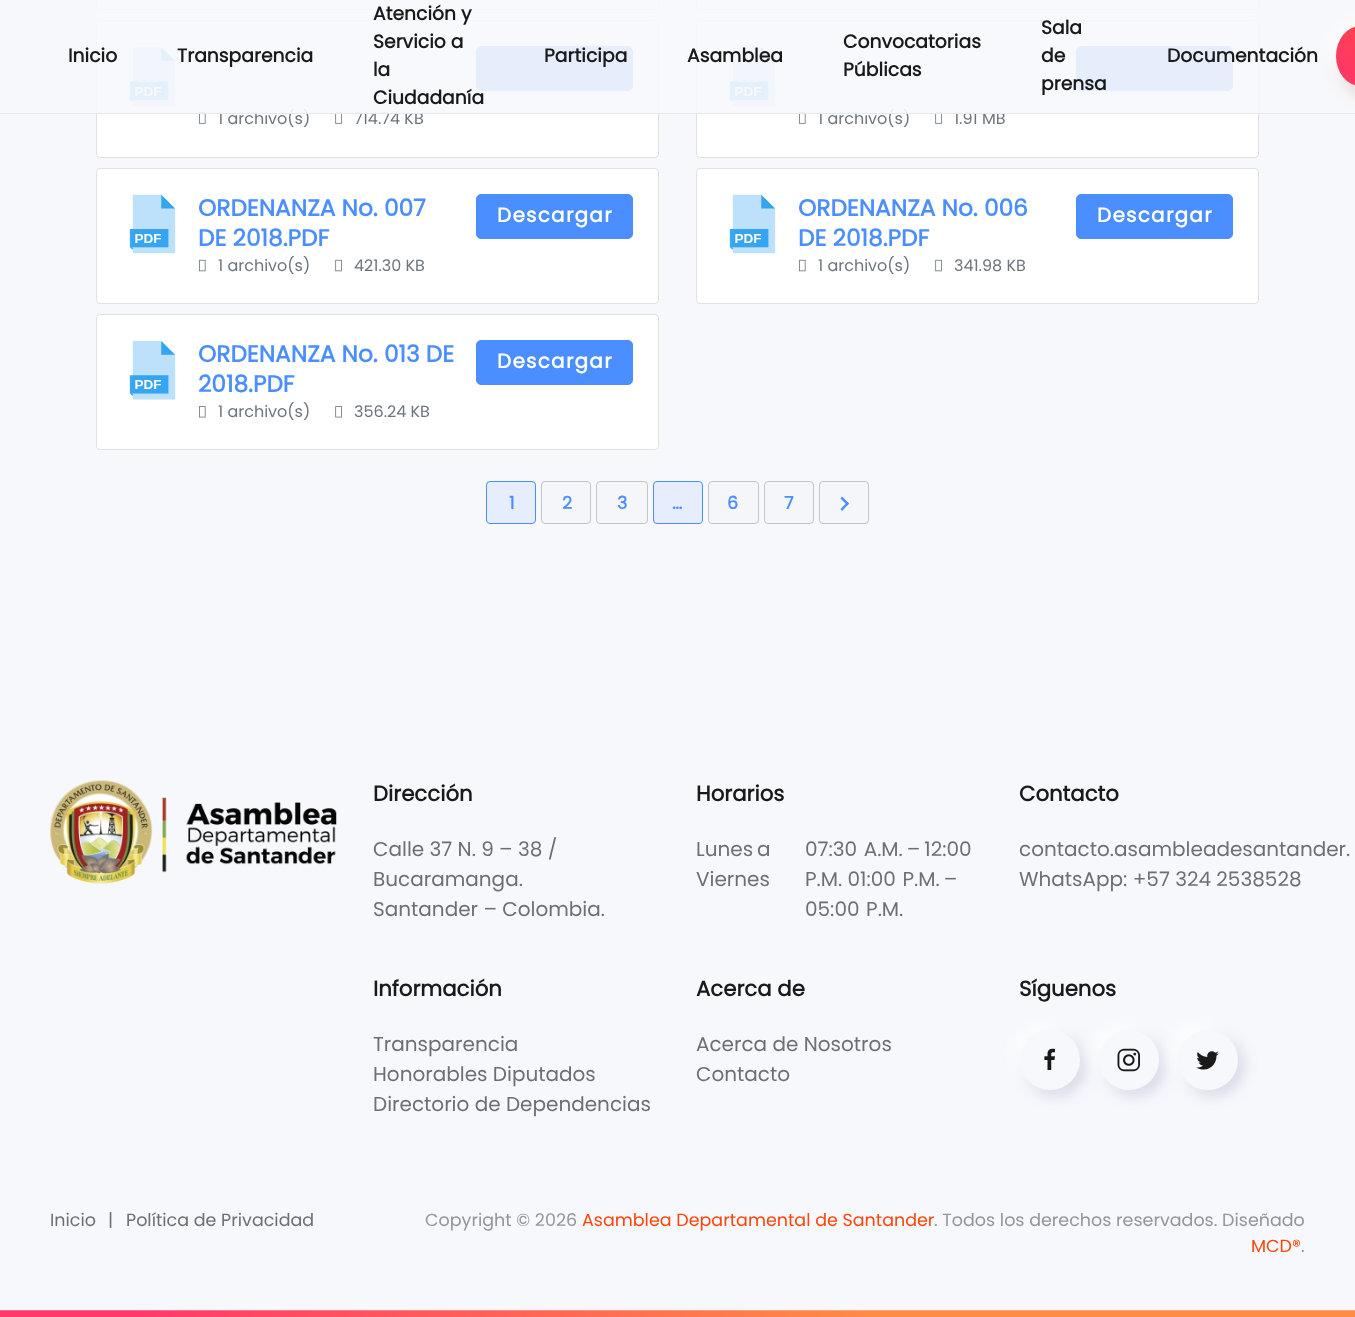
<svg xmlns="http://www.w3.org/2000/svg" width="1355" height="1317" viewBox="0 0 1355 1317">
  <defs>
    <linearGradient id="g1" gradientUnits="userSpaceOnUse" x1="1218" y1="152" x2="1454" y2="-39"><stop offset="0.5" stop-color="rgb(254,57,102)"/><stop offset="0.7" stop-color="rgb(255,69,56)"/><stop offset="1" stop-color="rgb(255,138,66)"/></linearGradient>
  </defs>
  <rect width="100%" height="100%" fill="rgb(247,248,252)"/>
  <image x="0" y="1310" width="1355" height="7" href="pic1.png"/>
  <rect x="96" y="-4" width="563" height="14" rx="4" fill="rgb(255,255,255)"/>
  <rect x="96.5" y="-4.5" width="562" height="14" rx="3.5" fill="none" stroke="rgba(0,0,0,0.12)"/>
  <rect x="696" y="-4" width="563" height="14" rx="4" fill="rgb(255,255,255)"/>
  <rect x="696.5" y="-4.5" width="562" height="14" rx="3.5" fill="none" stroke="rgba(0,0,0,0.12)"/>
  <rect x="96" y="20" width="563" height="138" rx="4" fill="rgb(255,255,255)"/>
  <rect x="96.5" y="20.5" width="562" height="137" rx="3.5" fill="none" stroke="rgba(0,0,0,0.12)"/>
  <image x="129" y="47" width="47" height="59" href="pic2.png"/>
  <rect x="476.5" y="46.5" width="156" height="44" rx="4.5" fill="rgb(74,142,255)" stroke="rgb(74,142,255)"/>
  <image x="199" y="112" width="7" height="12" href="pic3.png"/>
  <text x="218" y="124" font-family="Poppins" font-size="16" fill="rgb(108,117,125)">1 archivo(s)</text>
  <image x="335" y="112" width="7" height="12" href="pic4.png"/>
  <text x="354" y="124" font-family="Poppins" font-size="16" fill="rgb(108,117,125)">714.74 KB</text>
  <rect x="696" y="20" width="563" height="138" rx="4" fill="rgb(255,255,255)"/>
  <rect x="696.5" y="20.5" width="562" height="137" rx="3.5" fill="none" stroke="rgba(0,0,0,0.12)"/>
  <image x="729" y="47" width="47" height="59" href="pic5.png"/>
  <rect x="1076.5" y="46.5" width="156" height="44" rx="4.5" fill="rgb(74,142,255)" stroke="rgb(74,142,255)"/>
  <image x="799" y="112" width="7" height="12" href="pic3.png"/>
  <text x="818" y="124" font-family="Poppins" font-size="16" fill="rgb(108,117,125)">1 archivo(s)</text>
  <image x="935" y="112" width="7" height="12" href="pic4.png"/>
  <text x="954" y="124" font-family="Poppins" font-size="16" fill="rgb(108,117,125)">1.91 MB</text>
  <rect x="96" y="0" width="1163" height="113" fill="rgba(247,248,252,0.9)"/>
  <rect x="0" y="113" width="1355" height="1" fill="rgb(229,233,237)"/>
  <g font-family="Poppins" font-size="18.75" font-weight="bold" fill="rgb(26,26,26)">
    <text x="68" y="62">Inicio</text>
    <text x="177" y="62">Transparencia</text>
    <text>
      <tspan x="373" y="20">Atención y</tspan>
      <tspan x="373" y="48">Servicio a</tspan>
      <tspan x="373" y="76">la</tspan>
      <tspan x="373" y="104">Ciudadanía</tspan>
    </text>
    <text x="544" y="62">Participa</text>
    <text x="687" y="62">Asamblea</text>
    <text>
      <tspan x="843" y="48">Convocatorias</tspan>
      <tspan x="843" y="76">Públicas</tspan>
    </text>
    <text>
      <tspan x="1041" y="34">Sala</tspan>
      <tspan x="1041" y="62">de</tspan>
      <tspan x="1041" y="90">prensa</tspan>
    </text>
  </g>
  <rect x="1343" y="33" width="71" height="60" rx="30" fill="rgba(163,39,0,0.3)" filter="blur(9.5px)"/>
  <rect x="1330" y="20" width="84" height="60" rx="30" fill="rgba(255,255,255,0.9)" filter="blur(9.5px)"/>
  <text x="1167" y="62" font-family="Poppins" font-size="18.75" font-weight="bold" fill="rgb(26,26,26)">Documentación</text>
  <rect x="1336" y="26" width="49" height="60" rx="30" fill="url(#g1)"/>
  <rect x="96" y="168" width="563" height="136" rx="4" fill="rgb(255,255,255)"/>
  <rect x="96.5" y="168.5" width="562" height="135" rx="3.5" fill="none" stroke="rgba(0,0,0,0.12)"/>
  <image x="129" y="194" width="47" height="60" href="pic6.png"/>
  <g font-family="Poppins" font-size="23.25" font-weight="bold" fill="rgb(74,142,255)">
    <text>
      <tspan x="198" y="216">ORDENANZA No. 007</tspan>
      <tspan x="198" y="246">DE 2018.PDF</tspan>
    </text>
  </g>
  <image x="199" y="259" width="7" height="13" href="pic7.png"/>
  <text x="218" y="271" font-family="Poppins" font-size="16" fill="rgb(108,117,125)">1 archivo(s)</text>
  <image x="335" y="259" width="7" height="13" href="pic8.png"/>
  <text x="354" y="271" font-family="Poppins" font-size="16" fill="rgb(108,117,125)">421.30 KB</text>
  <rect x="476.5" y="194.5" width="156" height="44" rx="4.5" fill="rgb(74,142,255)" stroke="rgb(74,142,255)"/>
  <text x="497" y="222" font-family="Poppins" font-size="20" font-weight="bold" letter-spacing="1.25" fill="rgb(255,255,255)">Descargar</text>
  <rect x="696" y="168" width="563" height="136" rx="4" fill="rgb(255,255,255)"/>
  <rect x="696.5" y="168.5" width="562" height="135" rx="3.5" fill="none" stroke="rgba(0,0,0,0.12)"/>
  <image x="729" y="194" width="47" height="60" href="pic9.png"/>
  <g font-family="Poppins" font-size="23.25" font-weight="bold" fill="rgb(74,142,255)">
    <text>
      <tspan x="798" y="216">ORDENANZA No. 006</tspan>
      <tspan x="798" y="246">DE 2018.PDF</tspan>
    </text>
  </g>
  <image x="799" y="259" width="7" height="13" href="pic7.png"/>
  <text x="818" y="271" font-family="Poppins" font-size="16" fill="rgb(108,117,125)">1 archivo(s)</text>
  <image x="935" y="259" width="7" height="13" href="pic8.png"/>
  <text x="954" y="271" font-family="Poppins" font-size="16" fill="rgb(108,117,125)">341.98 KB</text>
  <rect x="1076.5" y="194.5" width="156" height="44" rx="4.5" fill="rgb(74,142,255)" stroke="rgb(74,142,255)"/>
  <text x="1097" y="222" font-family="Poppins" font-size="20" font-weight="bold" letter-spacing="1.25" fill="rgb(255,255,255)">Descargar</text>
  <rect x="96" y="314" width="563" height="136" rx="4" fill="rgb(255,255,255)"/>
  <rect x="96.5" y="314.5" width="562" height="135" rx="3.5" fill="none" stroke="rgba(0,0,0,0.12)"/>
  <image x="129" y="341" width="47" height="59" href="pic10.png"/>
  <g font-family="Poppins" font-size="23.25" font-weight="bold" fill="rgb(74,142,255)">
    <text>
      <tspan x="198" y="362">ORDENANZA No. 013 DE</tspan>
      <tspan x="198" y="392">2018.PDF</tspan>
    </text>
  </g>
  <image x="199" y="406" width="7" height="12" href="pic11.png"/>
  <text x="218" y="417" font-family="Poppins" font-size="16" fill="rgb(108,117,125)">1 archivo(s)</text>
  <image x="335" y="406" width="7" height="12" href="pic12.png"/>
  <text x="354" y="417" font-family="Poppins" font-size="16" fill="rgb(108,117,125)">356.24 KB</text>
  <rect x="476.5" y="340.5" width="156" height="44" rx="4.5" fill="rgb(74,142,255)" stroke="rgb(74,142,255)"/>
  <text x="497" y="368" font-family="Poppins" font-size="20" font-weight="bold" letter-spacing="1.25" fill="rgb(255,255,255)">Descargar</text>
  <rect x="486.5" y="481.5" width="49" height="42" rx="3.5" fill="rgb(230,237,252)" stroke="rgb(74,142,255)"/>
  <text x="509" y="509" font-family="Poppins" font-size="17.5" font-weight="bold" fill="rgb(74,142,255)">1</text>
  <rect x="541.5" y="481.5" width="49" height="42" rx="3.5" fill="rgb(245,246,249)" stroke="rgb(196,197,199)"/>
  <text x="562" y="509" font-family="Poppins" font-size="17.5" font-weight="bold" fill="rgb(74,142,255)">2</text>
  <rect x="596.5" y="481.5" width="51" height="42" rx="3.5" fill="rgb(245,246,249)" stroke="rgb(196,197,199)"/>
  <text x="617" y="509" font-family="Poppins" font-size="17.5" font-weight="bold" fill="rgb(74,142,255)">3</text>
  <rect x="653.5" y="481.5" width="49" height="42" rx="3.5" fill="rgb(230,237,252)" stroke="rgb(74,142,255)"/>
  <text x="672" y="509" font-family="Poppins" font-size="17.5" font-weight="bold" fill="rgb(74,142,255)">…</text>
  <rect x="708.5" y="481.5" width="50" height="42" rx="3.5" fill="rgb(245,246,249)" stroke="rgb(196,197,199)"/>
  <text x="727" y="509" font-family="Poppins" font-size="17.5" font-weight="bold" fill="rgb(74,142,255)">6</text>
  <rect x="764.5" y="481.5" width="49" height="42" rx="3.5" fill="rgb(245,246,249)" stroke="rgb(196,197,199)"/>
  <text x="784" y="509" font-family="Poppins" font-size="17.5" font-weight="bold" fill="rgb(74,142,255)">7</text>
  <rect x="819.5" y="481.5" width="49" height="42" rx="3.5" fill="rgb(245,246,249)" stroke="rgb(196,197,199)"/>
  <path d="M842 496.5L849 503.5L847.5 505.5L840.5 498.5Z" fill="rgb(74,142,255)"/>
  <path d="M847.5 502L849 503.5L842 511L840.5 509Z" fill="rgb(74,142,255)"/>
  <image x="50" y="780" width="287" height="104" href="pic13.png"/>
  <text x="373" y="801" font-family="Poppins" font-size="21.25" font-weight="bold" fill="rgb(26,26,26)">Dirección</text>
  <g font-family="Poppins" font-size="20" fill="rgb(109,111,114)">
    <text>
      <tspan x="373" y="856">Calle 37 N. 9 – 38 /</tspan>
      <tspan x="373" y="886">Bucaramanga.</tspan>
      <tspan x="373" y="916">Santander – Colombia.</tspan>
    </text>
  </g>
  <text x="696" y="801" font-family="Poppins" font-size="21.25" font-weight="bold" fill="rgb(26,26,26)">Horarios</text>
  <g font-family="Poppins" font-size="20" fill="rgb(109,111,114)">
    <text>
      <tspan x="696" y="856">Lunes a</tspan>
      <tspan x="696" y="886">Viernes</tspan>
    </text>
    <text>
      <tspan x="805" y="856">07:30  A.M. – 12:00</tspan>
      <tspan x="805" y="886">P.M. 01:00  P.M. –</tspan>
      <tspan x="805" y="916">05:00  P.M.</tspan>
    </text>
  </g>
  <text x="1019" y="801" font-family="Poppins" font-size="21.25" font-weight="bold" fill="rgb(26,26,26)">Contacto</text>
  <g font-family="Poppins" font-size="20" fill="rgb(109,111,114)">
    <text>
      <tspan x="1019" y="856">contacto.asambleadesantander.</tspan>
      <tspan x="1019" y="886">WhatsApp: +57 324 2538528</tspan>
    </text>
  </g>
  <text x="373" y="996" font-family="Poppins" font-size="21.25" font-weight="bold" fill="rgb(26,26,26)">Información</text>
  <g font-family="Poppins" font-size="20" fill="rgb(109,111,114)">
    <text>
      <tspan x="373" y="1051">Transparencia</tspan>
      <tspan x="373" y="1081">Honorables Diputados</tspan>
      <tspan x="373" y="1111">Directorio de Dependencias</tspan>
    </text>
  </g>
  <text x="696" y="996" font-family="Poppins" font-size="21.25" font-weight="bold" fill="rgb(26,26,26)">Acerca de</text>
  <g font-family="Poppins" font-size="20" fill="rgb(109,111,114)">
    <text>
      <tspan x="696" y="1051">Acerca de Nosotros</tspan>
      <tspan x="696" y="1081">Contacto</tspan>
    </text>
  </g>
  <text x="1019" y="996" font-family="Poppins" font-size="21.25" font-weight="bold" fill="rgb(26,26,26)">Síguenos</text>
  <rect x="1025" y="1035" width="60" height="60" rx="30" fill="rgba(57,65,124,0.2)" filter="blur(7.5px)"/>
  <rect x="1014" y="1024" width="60" height="60" rx="30" fill="rgba(255,255,255,0.9)" filter="blur(9.5px)"/>
  <circle cx="1050" cy="1060" r="30" fill="rgb(247,248,252)"/>
  <image x="1044" y="1048" width="11" height="22" href="pic14.png"/>
  <rect x="1104" y="1035" width="60" height="60" rx="30" fill="rgba(57,65,124,0.2)" filter="blur(7.5px)"/>
  <rect x="1093" y="1024" width="60" height="60" rx="30" fill="rgba(255,255,255,0.9)" filter="blur(9.5px)"/>
  <circle cx="1129" cy="1060" r="30" fill="rgb(247,248,252)"/>
  <image x="1117" y="1048" width="23" height="24" href="pic15.png"/>
  <rect x="1183" y="1035" width="60" height="60" rx="30" fill="rgba(57,65,124,0.2)" filter="blur(7.5px)"/>
  <rect x="1171" y="1024" width="60" height="60" rx="30" fill="rgba(255,255,255,0.9)" filter="blur(9.5px)"/>
  <circle cx="1208" cy="1060" r="30" fill="rgb(247,248,252)"/>
  <image x="1196" y="1051" width="23" height="19" href="pic16.png"/>
  <g font-family="Poppins" font-size="17.5" fill="rgb(109,111,114)">
    <text x="50" y="1226">Inicio</text>
    <text x="108" y="1226">|</text>
    <text x="126" y="1226">Política de Privacidad</text>
  </g>
  <text x="425" y="1226" font-family="Poppins" font-size="17.5" fill="rgb(148,148,154)">Copyright © 2026</text>
  <text x="582" y="1226" font-family="Poppins" font-size="17.5" fill="rgb(255,69,10)">Asamblea Departamental de Santander</text>
  <text x="934" y="1226" font-family="Poppins" font-size="17.5" fill="rgb(148,148,154)">. Todos los derechos reservados. Diseñado</text>
  <text x="1251" y="1252" font-family="Poppins" font-size="17.5" fill="rgb(255,69,10)">MCD®</text>
  <text x="1301" y="1252" font-family="Poppins" font-size="17.5" fill="rgb(148,148,154)">.</text>
</svg>
